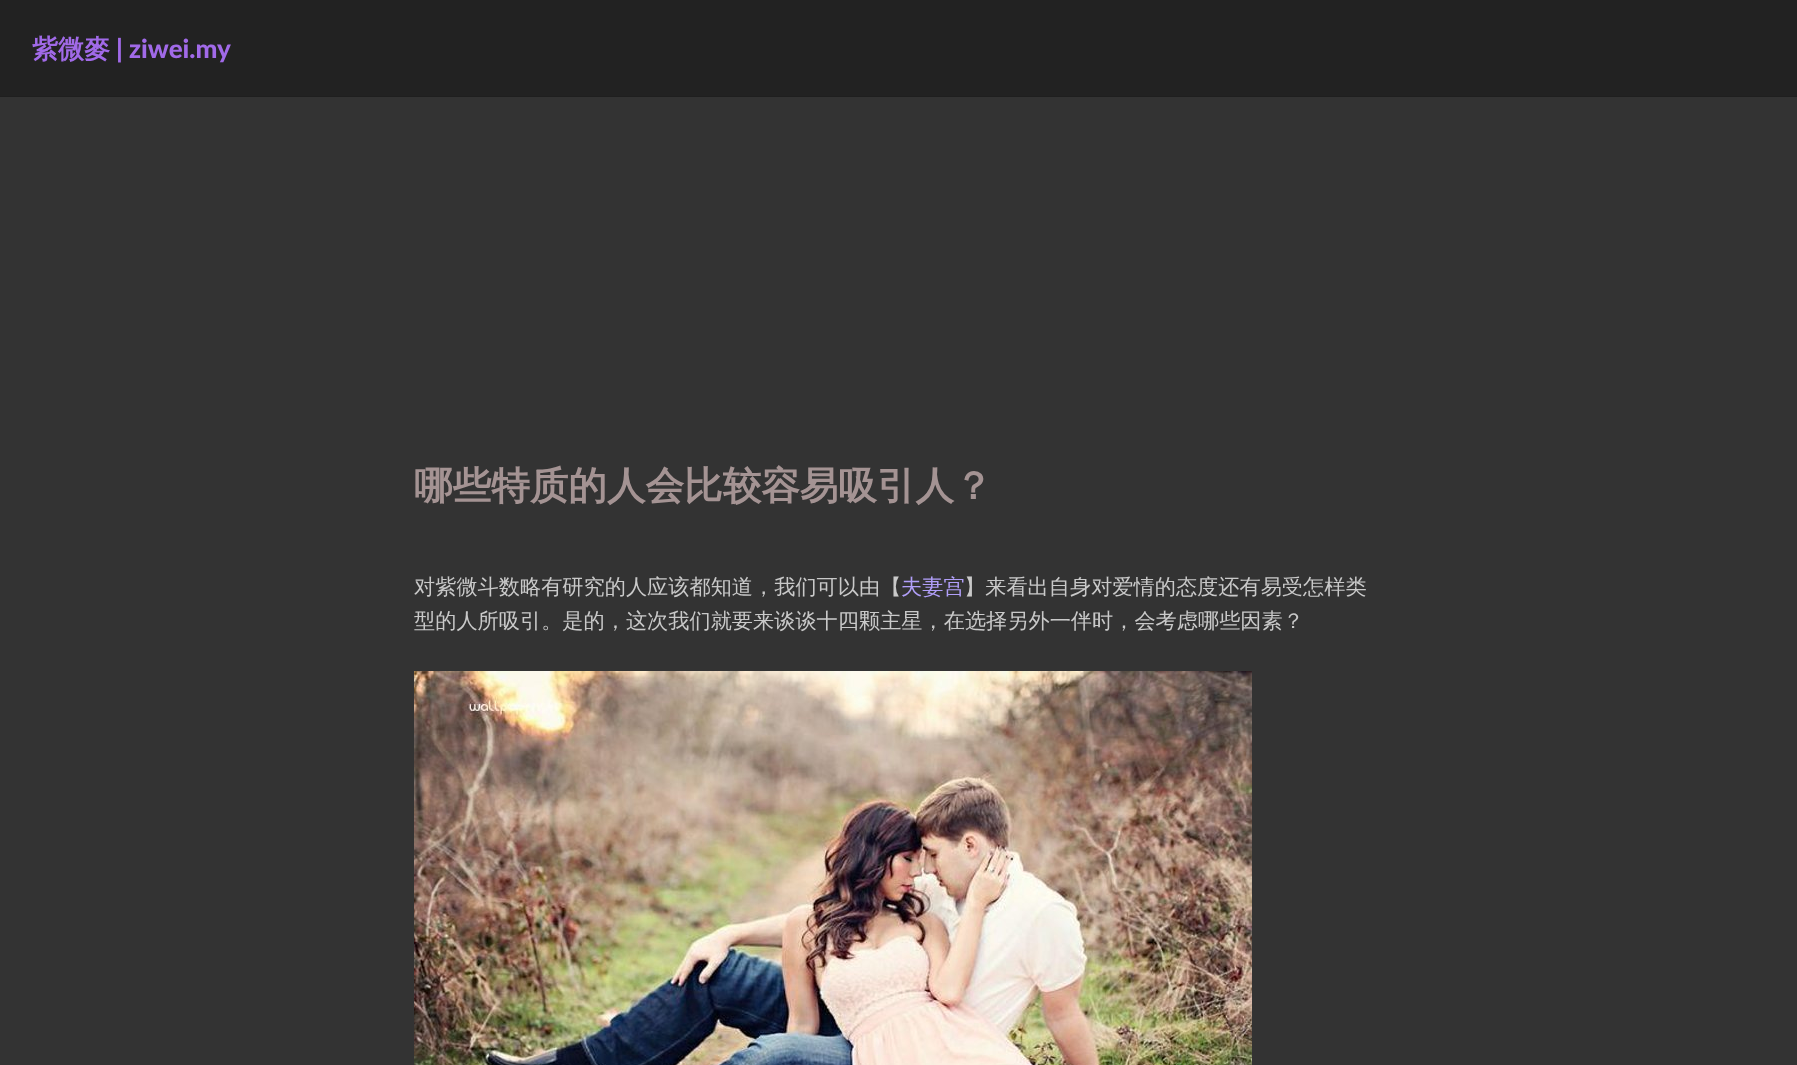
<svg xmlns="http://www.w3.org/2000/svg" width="1797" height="1065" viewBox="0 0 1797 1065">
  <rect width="100%" height="100%" fill="rgb(51,51,51)"/>
  <rect x="0" y="0" width="1797" height="96" fill="rgb(34,34,34)"/>
  <rect x="0" y="96" width="1797" height="1" fill="rgb(31,31,31)"/>
  <text x="32" y="58" font-family="WenQuanYi Zen Hei" font-size="26" font-weight="bold" fill="rgb(161,106,232)">紫微麥</text>
  <text x="116" y="58" font-family="Lato" font-size="26" font-weight="900" fill="rgb(161,106,232)">| ziwei.my</text>
  <text x="414" y="499" font-family="WenQuanYi Zen Hei" font-size="38.6" font-weight="bold" fill="rgb(164,147,147)">哪些特质的人会比较容易吸引人？</text>
  <text x="414" y="594" font-family="WenQuanYi Zen Hei" font-size="21.2" font-weight="500" fill="rgb(201,201,201)">对紫微斗数略有研究的人应该都知道，我们可以由【</text>
  <text x="901" y="594" font-family="WenQuanYi Zen Hei" font-size="21.2" font-weight="500" fill="rgb(177,159,249)">夫妻宫</text>
  <g font-family="WenQuanYi Zen Hei" font-size="21.2" font-weight="500" fill="rgb(201,201,201)">
    <text x="964" y="594">】来看出自身对爱情的态度还有易受怎样类</text>
    <text x="414" y="628">型的人所吸引。是的，这次我们就要来谈谈十四颗主星，在选择另外一伴时，会考虑哪些因素？</text>
  </g>
  <image x="414" y="671" width="838" height="394" href="pic1.png"/>
</svg>
